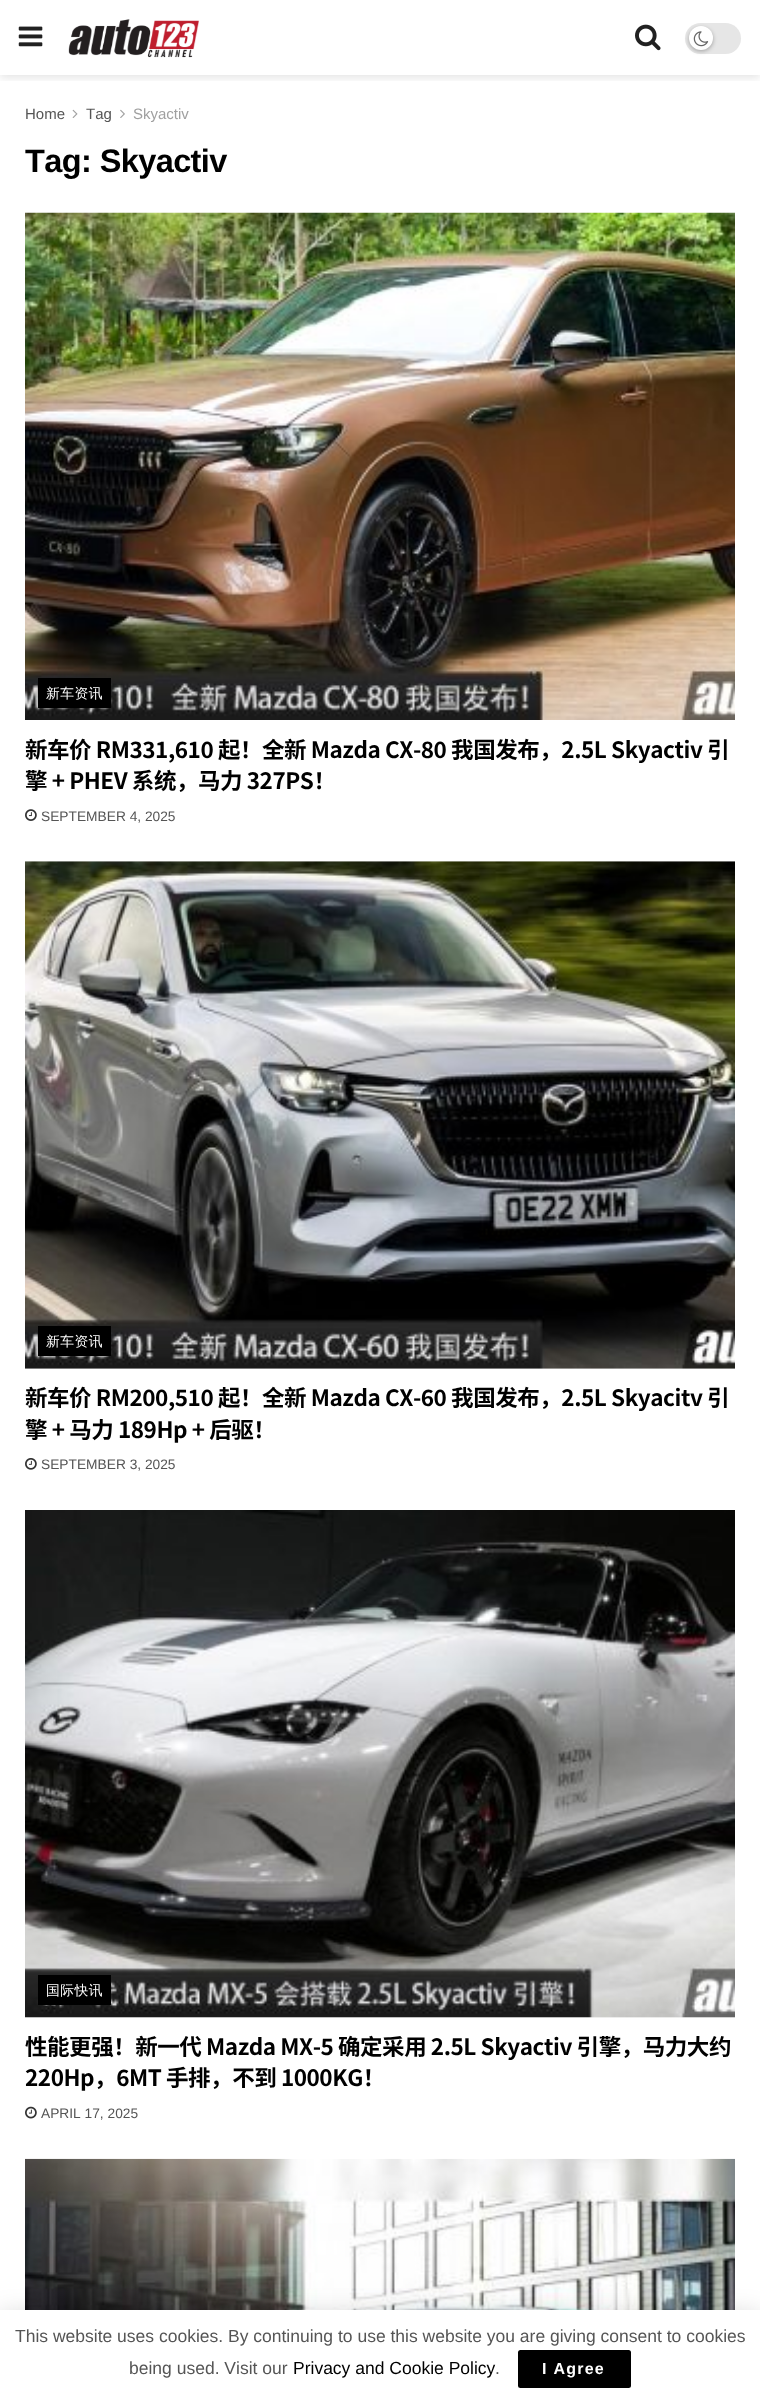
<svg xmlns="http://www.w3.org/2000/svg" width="760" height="2399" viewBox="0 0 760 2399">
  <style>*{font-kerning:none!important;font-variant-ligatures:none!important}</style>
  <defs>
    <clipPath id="clip1"><rect x="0" y="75" width="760" height="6"/></clipPath>
  </defs>
  <rect width="100%" height="100%" fill="rgb(255,255,255)"/>
  <g clip-path="url(#clip1)">
    <rect x="0" y="3" width="760" height="75" fill="rgba(0,0,0,0.1)" filter="blur(4px)"/>
  </g>
  <image x="18" y="26" width="25" height="21" href="pic1.png"/>
  <image x="68" y="19" width="131" height="39" href="pic2.png"/>
  <image x="635" y="24" width="26" height="27" href="pic3.png"/>
  <rect x="685" y="23" width="56" height="31" rx="15.5" fill="rgb(230,230,230)"/>
  <rect x="689" y="28" width="24" height="23" rx="11.5" fill="rgba(0,0,0,0.3)" filter="blur(2px)"/>
  <circle cx="701" cy="38" r="12" fill="rgb(255,255,255)"/>
  <image x="693" y="31" width="16" height="16" href="pic4.png"/>
  <text x="25" y="119" font-family="Liberation Sans" font-size="15" fill="rgb(85,85,85)">Home</text>
  <image x="72" y="109" width="6" height="9" href="pic5.png"/>
  <text x="86" y="119" font-family="Liberation Sans" font-size="15" fill="rgb(85,85,85)">Tag</text>
  <image x="120" y="109" width="5" height="9" href="pic6.png"/>
  <text x="133" y="119" font-family="Liberation Sans" font-size="15" fill="rgb(160,160,160)">Skyactiv</text>
  <text x="25" y="172" font-family="Liberation Sans" font-size="32.5" font-weight="bold" letter-spacing="-0.6" fill="rgb(0,0,0)">Tag: Skyactiv</text>
  <image x="25" y="212" width="710" height="508" href="pic7.png"/>
  <rect x="38" y="678" width="73" height="30" fill="rgb(0,0,0)"/>
  <text x="46" y="698" font-family="WenQuanYi Zen Hei" font-size="13.75" font-weight="500" letter-spacing="0.5" fill="rgb(255,255,255)">新车资讯</text>
  <g font-family="Noto Sans SC" font-size="22.5" font-weight="bold" letter-spacing="-0.45" fill="rgb(0,0,0)">
    <text>
      <tspan x="25" y="758">新车价 RM331,610 起！全新 Mazda CX-80 我国发布，2.5L Skyactiv 引</tspan>
      <tspan x="25" y="789">擎 + PHEV 系统，马力 327PS！</tspan>
    </text>
  </g>
  <image x="25" y="809" width="12" height="12" href="pic8.png"/>
  <text x="41" y="821" font-family="Liberation Sans" font-size="13.75" fill="rgb(85,85,85)">SEPTEMBER 4, 2025</text>
  <rect x="25" y="861" width="710" height="508" fill="rgb(247,247,247)"/>
  <image x="25" y="861" width="710" height="508" href="pic9.png"/>
  <rect x="38" y="1326" width="73" height="30" fill="rgb(0,0,0)"/>
  <text x="46" y="1346" font-family="WenQuanYi Zen Hei" font-size="13.75" font-weight="500" letter-spacing="0.5" fill="rgb(255,255,255)">新车资讯</text>
  <g font-family="Noto Sans SC" font-size="22.5" font-weight="bold" letter-spacing="-0.45" fill="rgb(0,0,0)">
    <text>
      <tspan x="25" y="1406">新车价 RM200,510 起！全新 Mazda CX-60 我国发布，2.5L Skyacitv 引</tspan>
      <tspan x="25" y="1438">擎 + 马力 189Hp + 后驱！</tspan>
    </text>
  </g>
  <image x="25" y="1458" width="12" height="12" href="pic10.png"/>
  <text x="41" y="1469" font-family="Liberation Sans" font-size="13.75" fill="rgb(85,85,85)">SEPTEMBER 3, 2025</text>
  <rect x="25" y="2017" width="710" height="1" fill="rgb(247,247,247)"/>
  <image x="25" y="1510" width="710" height="508" href="pic11.png"/>
  <rect x="38" y="1975" width="73" height="30" fill="rgb(0,0,0)"/>
  <text x="46" y="1995" font-family="WenQuanYi Zen Hei" font-size="13.75" font-weight="500" letter-spacing="0.5" fill="rgb(255,255,255)">国际快讯</text>
  <g font-family="Noto Sans SC" font-size="22.5" font-weight="bold" letter-spacing="-0.45" fill="rgb(0,0,0)">
    <text>
      <tspan x="25" y="2055">性能更强！新一代 Mazda MX-5 确定采用 2.5L Skyactiv 引擎，马力大约</tspan>
      <tspan x="25" y="2086">220Hp，6MT 手排，不到 1000KG！</tspan>
    </text>
  </g>
  <image x="25" y="2106" width="12" height="13" href="pic12.png"/>
  <text x="41" y="2118" font-family="Liberation Sans" font-size="13.75" fill="rgb(85,85,85)">APRIL 17, 2025</text>
  <image x="25" y="2158" width="710" height="152" href="pic13.png"/>
  <rect x="0" y="2313" width="760" height="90" fill="rgba(0,0,0,0.15)" filter="blur(12.5px)"/>
  <rect x="0" y="2310" width="760" height="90" fill="rgba(0,0,0,0.2)" filter="blur(0.5px)"/>
  <rect x="0" y="2310" width="760" height="89" fill="rgb(255,255,255)"/>
  <g font-family="Liberation Sans" font-size="17.5" fill="rgb(85,85,85)">
    <text x="15" y="2342">This website uses cookies. By continuing to use this website you are giving consent to cookies</text>
    <text x="129" y="2374">being used. Visit our</text>
  </g>
  <text x="293" y="2374" font-family="Liberation Sans" font-size="17.5" fill="rgb(0,0,0)">Privacy and Cookie Policy</text>
  <text x="495" y="2374" font-family="Liberation Sans" font-size="17.5" fill="rgb(85,85,85)">.</text>
  <rect x="518" y="2350" width="113" height="38" rx="2.5" fill="rgb(0,0,0)"/>
  <text x="542" y="2374" font-family="Liberation Sans" font-size="16" font-weight="bold" letter-spacing="1.25" fill="rgb(255,255,255)">I Agree</text>
</svg>
